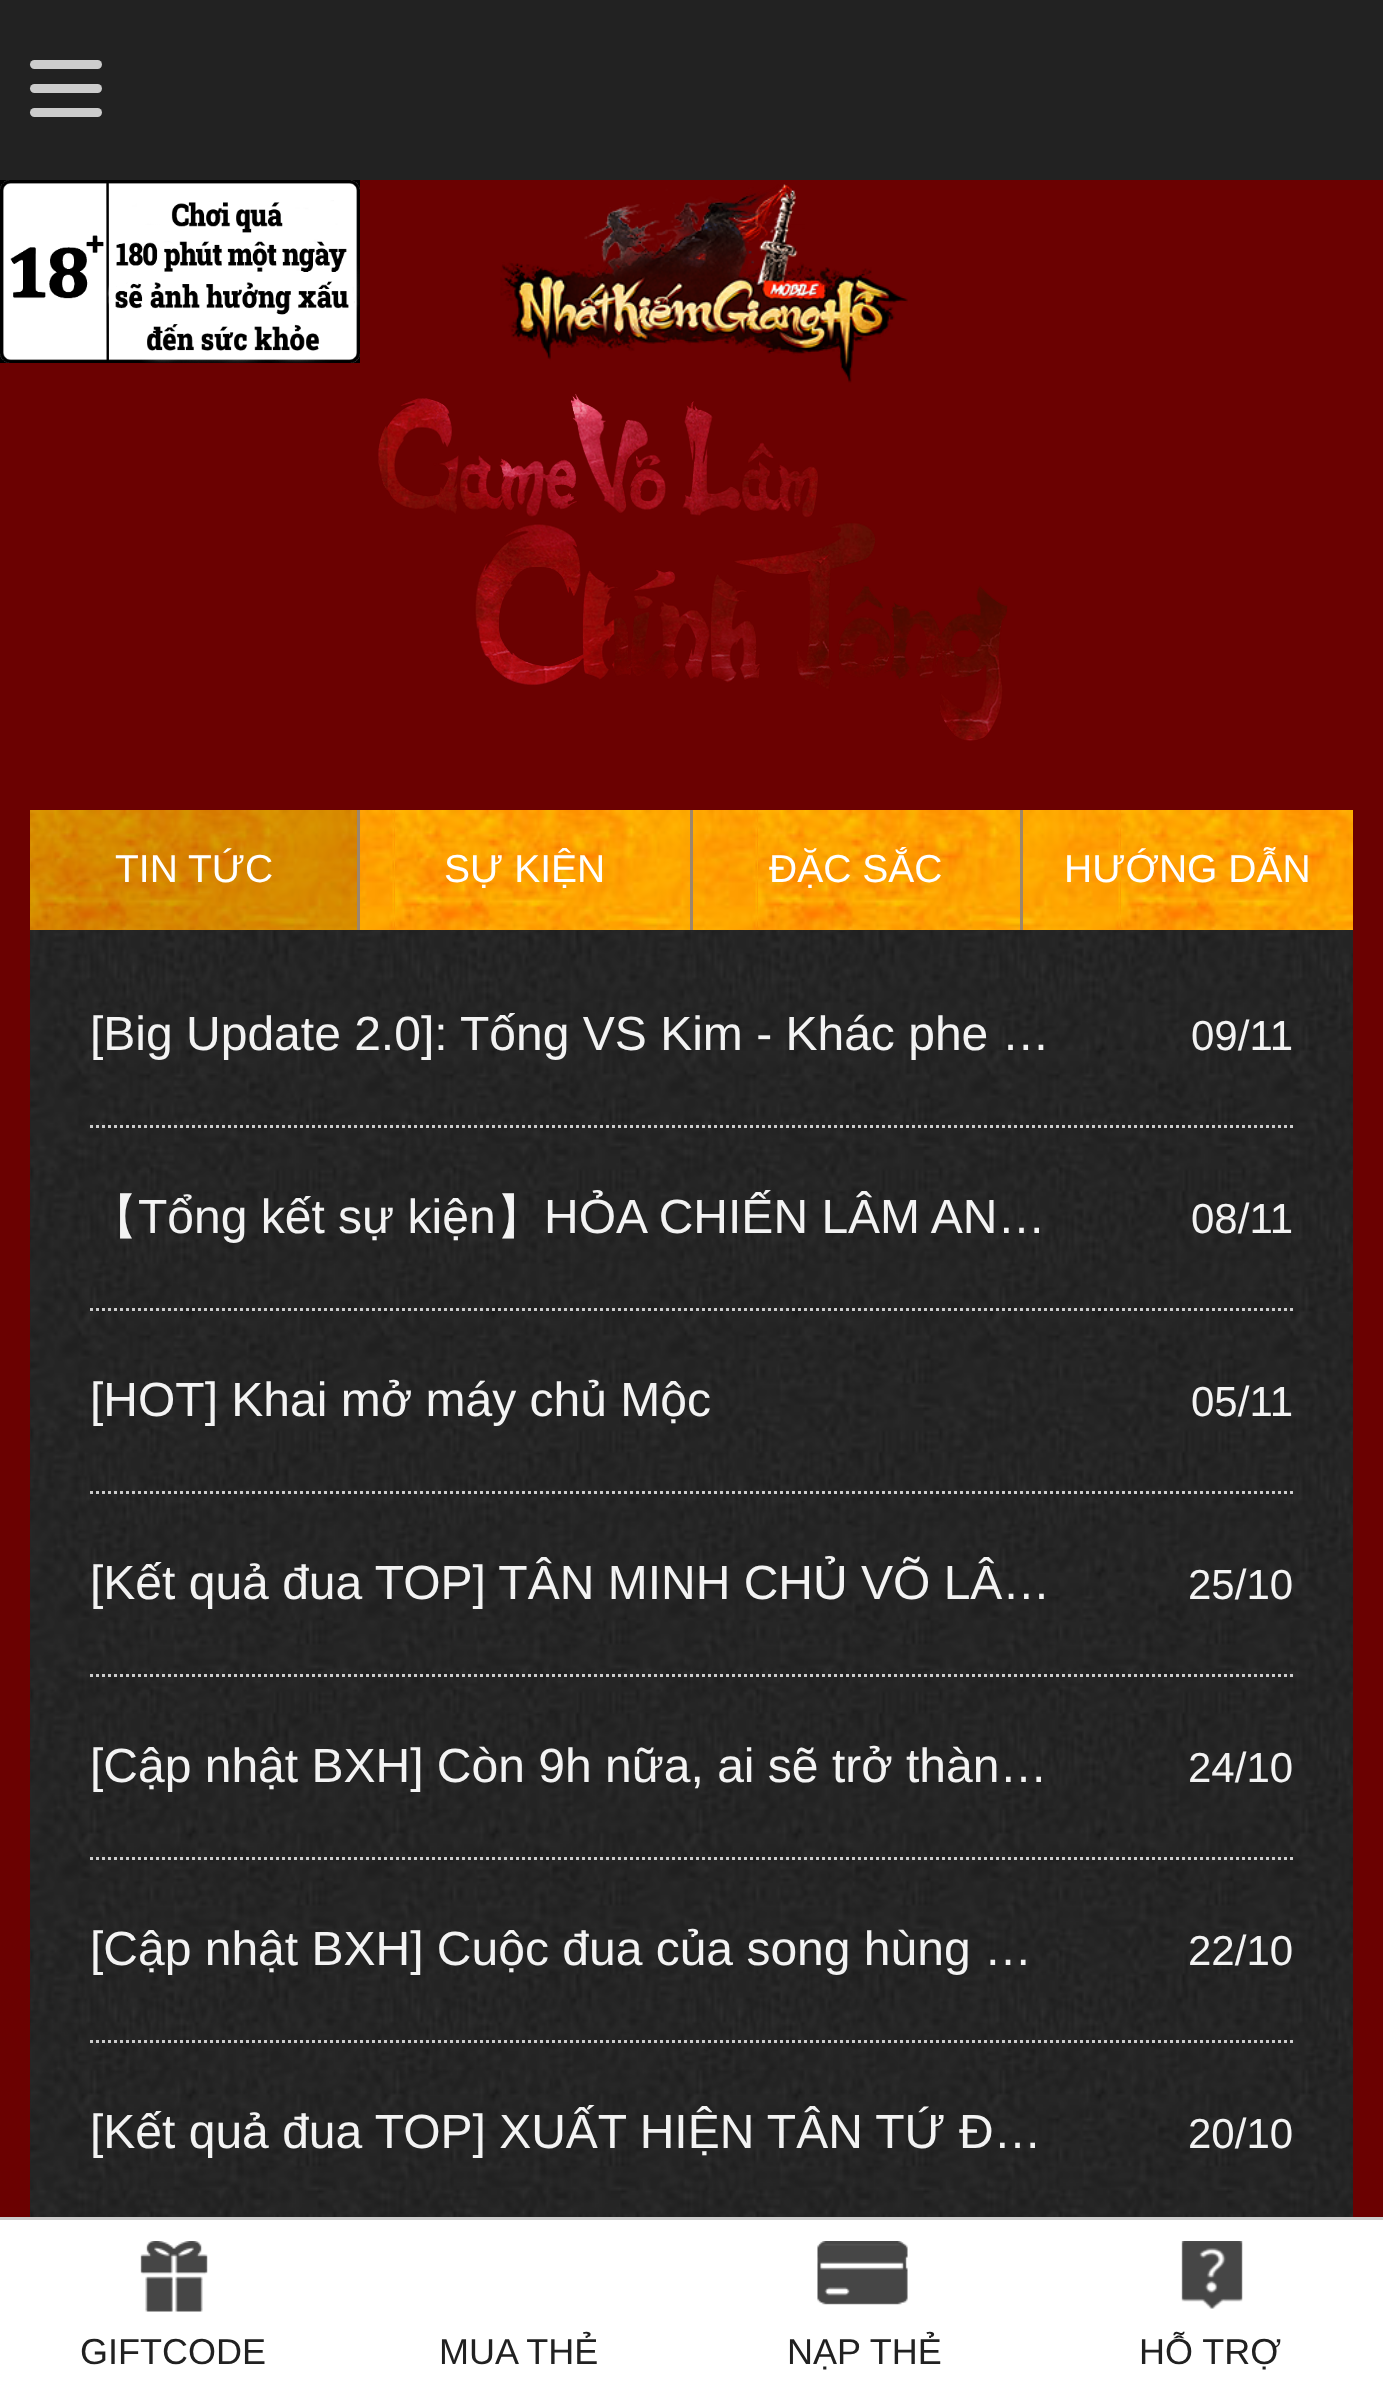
<svg xmlns="http://www.w3.org/2000/svg" width="1383" height="2385" viewBox="0 0 1383 2385">
  <rect width="100%" height="100%" fill="rgb(107,1,1)"/>
  <rect x="0" y="0" width="1383" height="180" fill="rgb(34,34,34)"/>
  <rect x="30" y="60" width="72" height="9" rx="4.5" fill="rgb(204,204,204)"/>
  <rect x="30" y="84" width="72" height="9" rx="4.5" fill="rgb(204,204,204)"/>
  <rect x="30" y="108" width="72" height="9" rx="4.5" fill="rgb(204,204,204)"/>
  <image x="0" y="180" width="360" height="183" href="pic1.png"/>
  <image x="500" y="184" width="408" height="199" href="pic2.png"/>
  <image x="378" y="394" width="630" height="347" href="pic3.png"/>
  <image x="30" y="810" width="1323" height="120" href="pic4.png"/>
  <rect x="30" y="810" width="327" height="120" fill="rgba(58,29,1,0.2)"/>
  <rect x="357" y="810" width="3" height="120" fill="rgb(158,134,107)"/>
  <text x="115" y="882" font-family="Liberation Sans" font-size="39" fill="rgb(255,255,255)">TIN TỨC</text>
  <rect x="690" y="810" width="3" height="120" fill="rgb(158,134,107)"/>
  <text x="444" y="882" font-family="Liberation Sans" font-size="39" fill="rgb(255,255,255)">SỰ KIỆN</text>
  <rect x="1020" y="810" width="3" height="120" fill="rgb(158,134,107)"/>
  <g font-family="Liberation Sans" font-size="39" fill="rgb(255,255,255)">
    <text x="769" y="882">ĐẶC SẮC</text>
    <text x="1064" y="882">HƯỚNG DẪN</text>
  </g>
  <image x="30" y="930" width="1323" height="1287" href="pic5.png"/>
  <text x="90" y="1050" font-family="Liberation Sans" font-size="48" fill="rgb(243,243,243)">[Big Update 2.0]: Tống VS Kim - Khác phe …</text>
  <text x="1191" y="1050" font-family="Liberation Sans" font-size="42" fill="rgb(243,243,243)">09/11</text>
  <path d="M90 1126.5H1293" fill="none" stroke="rgb(204,204,204)" stroke-width="3" stroke-dasharray="3 3"/>
  <text x="90" y="1233" font-family="WenQuanYi Zen Hei" font-size="48" font-weight="500" fill="rgb(243,243,243)">【</text>
  <text x="138" y="1233" font-family="Liberation Sans" font-size="48" fill="rgb(243,243,243)">Tổng kết sự kiện</text>
  <text x="496" y="1233" font-family="WenQuanYi Zen Hei" font-size="48" font-weight="500" fill="rgb(243,243,243)">】</text>
  <text x="544" y="1233" font-family="Liberation Sans" font-size="48" fill="rgb(243,243,243)">HỎA CHIẾN LÂM AN…</text>
  <text x="1191" y="1233" font-family="Liberation Sans" font-size="42" fill="rgb(243,243,243)">08/11</text>
  <path d="M90 1309.5H1293" fill="none" stroke="rgb(204,204,204)" stroke-width="3" stroke-dasharray="3 3"/>
  <text x="90" y="1416" font-family="Liberation Sans" font-size="48" fill="rgb(243,243,243)">[HOT] Khai mở máy chủ Mộc</text>
  <text x="1191" y="1416" font-family="Liberation Sans" font-size="42" fill="rgb(243,243,243)">05/11</text>
  <path d="M90 1492.5H1293" fill="none" stroke="rgb(204,204,204)" stroke-width="3" stroke-dasharray="3 3"/>
  <text x="90" y="1599" font-family="Liberation Sans" font-size="48" fill="rgb(243,243,243)">[Kết quả đua TOP] TÂN MINH CHỦ VÕ LÂ…</text>
  <text x="1188" y="1599" font-family="Liberation Sans" font-size="42" fill="rgb(243,243,243)">25/10</text>
  <path d="M90 1675.5H1293" fill="none" stroke="rgb(204,204,204)" stroke-width="3" stroke-dasharray="3 3"/>
  <text x="90" y="1782" font-family="Liberation Sans" font-size="48" fill="rgb(243,243,243)">[Cập nhật BXH] Còn 9h nữa, ai sẽ trở thàn…</text>
  <text x="1188" y="1782" font-family="Liberation Sans" font-size="42" fill="rgb(243,243,243)">24/10</text>
  <path d="M90 1858.5H1293" fill="none" stroke="rgb(204,204,204)" stroke-width="3" stroke-dasharray="3 3"/>
  <text x="90" y="1965" font-family="Liberation Sans" font-size="48" fill="rgb(243,243,243)">[Cập nhật BXH] Cuộc đua của song hùng …</text>
  <text x="1188" y="1965" font-family="Liberation Sans" font-size="42" fill="rgb(243,243,243)">22/10</text>
  <path d="M90 2041.5H1293" fill="none" stroke="rgb(204,204,204)" stroke-width="3" stroke-dasharray="3 3"/>
  <text x="90" y="2148" font-family="Liberation Sans" font-size="48" fill="rgb(243,243,243)">[Kết quả đua TOP] XUẤT HIỆN TÂN TỨ Đ…</text>
  <text x="1188" y="2148" font-family="Liberation Sans" font-size="42" fill="rgb(243,243,243)">20/10</text>
  <rect x="0" y="2220" width="1383" height="165" fill="rgb(255,255,255)"/>
  <rect x="0" y="2217" width="1383" height="3" fill="rgb(206,206,206)"/>
  <image x="140" y="2241" width="68" height="71" href="pic6.png"/>
  <g font-family="Liberation Sans" font-size="36" fill="rgb(33,33,33)">
    <text x="80" y="2364">GIFTCODE</text>
    <text x="439" y="2364">MUA THẺ</text>
  </g>
  <image x="817" y="2241" width="91" height="64" href="pic7.png"/>
  <text x="787" y="2364" font-family="Liberation Sans" font-size="36" fill="rgb(33,33,33)">NẠP THẺ</text>
  <image x="1181" y="2241" width="62" height="68" href="pic8.png"/>
  <text x="1139" y="2364" font-family="Liberation Sans" font-size="36" fill="rgb(33,33,33)">HỖ TRỢ</text>
</svg>
